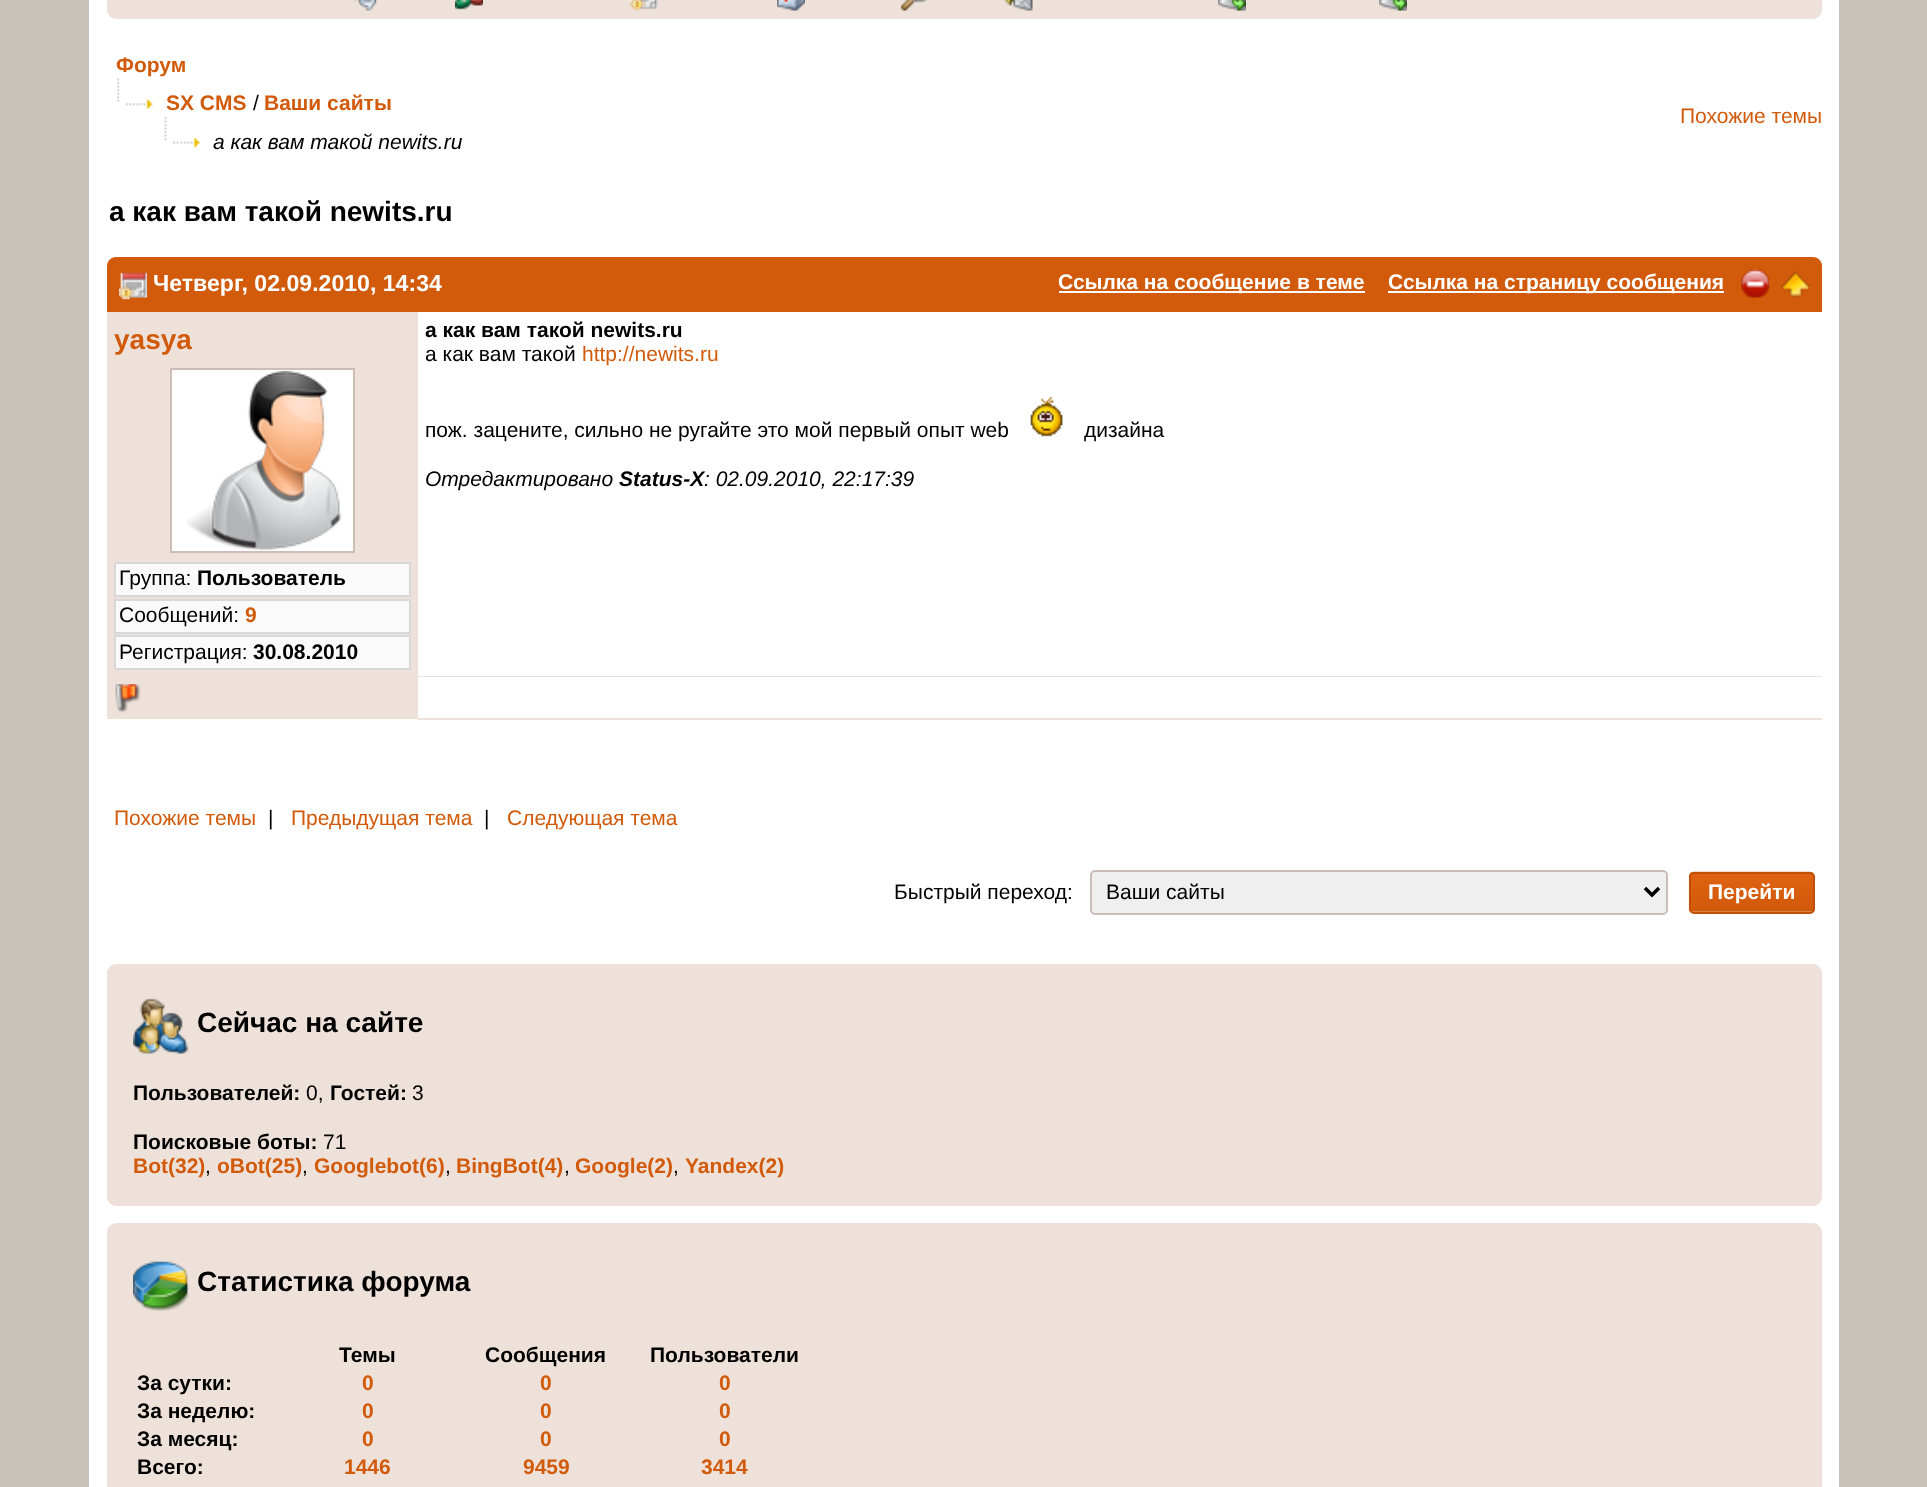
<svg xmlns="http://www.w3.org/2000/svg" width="1927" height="1487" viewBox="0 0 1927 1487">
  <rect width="100%" height="100%" fill="rgb(199,195,184)"/>
  <rect x="89" y="0" width="1750" height="1487" fill="rgb(255,255,255)"/>
  <rect x="107" y="-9" width="1715" height="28" rx="9" fill="rgb(237,225,218)"/>
  <image x="353" y="0" width="24" height="11" href="pic1.png"/>
  <image x="455" y="0" width="28" height="10" href="pic2.png"/>
  <image x="630" y="0" width="28" height="11" href="pic3.png"/>
  <image x="777" y="0" width="28" height="11" href="pic4.png"/>
  <image x="901" y="0" width="27" height="11" href="pic5.png"/>
  <image x="1004" y="0" width="29" height="11" href="pic6.png"/>
  <image x="1218" y="0" width="28" height="11" href="pic7.png"/>
  <image x="1379" y="0" width="28" height="11" href="pic8.png"/>
  <text x="116" y="72" font-family="Liberation Sans" font-size="21" font-weight="bold" fill="rgb(210,90,11)">Форум</text>
  <image x="117" y="78" width="3" height="24" href="pic9.png"/>
  <image x="126" y="99" width="27" height="10" href="pic10.png"/>
  <text x="166" y="110" font-family="Liberation Sans" font-size="21" font-weight="bold" fill="rgb(210,90,11)">SX CMS</text>
  <text x="253" y="110" font-family="Liberation Sans" font-size="21" fill="rgb(0,0,0)">/</text>
  <text x="264" y="110" font-family="Liberation Sans" font-size="21" font-weight="bold" fill="rgb(210,90,11)">Ваши сайты</text>
  <image x="164" y="117" width="3" height="24" href="pic11.png"/>
  <image x="173" y="137" width="27" height="11" href="pic12.png"/>
  <text x="213" y="149" font-family="Liberation Sans" font-size="21" font-style="italic" fill="rgb(0,0,0)">а как вам такой newits.ru</text>
  <text x="1680" y="123" font-family="Liberation Sans" font-size="21" fill="rgb(210,90,11)">Похожие темы</text>
  <text x="109" y="221" font-family="Liberation Sans" font-size="28" font-weight="bold" fill="rgb(0,0,0)">а как вам такой newits.ru</text>
  <path d="M116 257H1813C1818 257 1822 261 1822 266V312H107V266C107 261 111 257 116 257Z" fill="rgb(210,90,11)"/>
  <image x="119" y="272" width="28" height="28" href="pic13.png"/>
  <text x="153" y="291" font-family="Liberation Sans" font-size="23.1" font-weight="bold" fill="rgb(255,255,255)">Четверг, 02.09.2010, 14:34</text>
  <rect x="1059" y="291" width="306" height="2" fill="rgb(255,255,255)"/>
  <text x="1058" y="289" font-family="Liberation Sans" font-size="21" font-weight="bold" fill="rgb(255,255,255)">Ссылка на сообщение в теме</text>
  <rect x="1388" y="291" width="336" height="2" fill="rgb(255,255,255)"/>
  <text x="1388" y="289" font-family="Liberation Sans" font-size="21" font-weight="bold" fill="rgb(255,255,255)">Ссылка на страницу сообщения</text>
  <image x="1741" y="269" width="29" height="29" href="pic14.png"/>
  <image x="1781" y="271" width="29" height="27" href="pic15.png"/>
  <rect x="107" y="312" width="311" height="407" fill="rgb(237,225,218)"/>
  <text x="114" y="349" font-family="Liberation Sans" font-size="28" font-weight="bold" fill="rgb(210,90,11)">yasya</text>
  <rect x="171" y="369" width="183" height="183" fill="rgb(255,255,255)" stroke="rgb(204,189,183)" stroke-width="2"/>
  <image x="186" y="371" width="156" height="179" href="pic16.png"/>
  <rect x="115" y="563" width="295" height="33" fill="rgb(250,250,250)" stroke="rgb(216,216,216)" stroke-width="2"/>
  <text x="119" y="585" font-family="Liberation Sans" font-size="21" fill="rgb(0,0,0)">Группа:</text>
  <text x="197" y="585" font-family="Liberation Sans" font-size="21" font-weight="bold" fill="rgb(0,0,0)">Пользователь</text>
  <rect x="115" y="600" width="295" height="33" fill="rgb(250,250,250)" stroke="rgb(216,216,216)" stroke-width="2"/>
  <text x="119" y="622" font-family="Liberation Sans" font-size="21" fill="rgb(0,0,0)">Cообщений:</text>
  <text x="245" y="622" font-family="Liberation Sans" font-size="21" font-weight="bold" fill="rgb(210,90,11)">9</text>
  <rect x="115" y="636" width="295" height="33" fill="rgb(250,250,250)" stroke="rgb(216,216,216)" stroke-width="2"/>
  <text x="119" y="659" font-family="Liberation Sans" font-size="21" fill="rgb(0,0,0)">Регистрация:</text>
  <text x="253" y="659" font-family="Liberation Sans" font-size="21" font-weight="bold" fill="rgb(0,0,0)">30.08.2010</text>
  <rect x="418" y="676" width="1404" height="1" fill="rgb(237,225,218)"/>
  <text x="425" y="337" font-family="Liberation Sans" font-size="21" font-weight="bold" fill="rgb(0,0,0)">а как вам такой newits.ru</text>
  <text x="425" y="361" font-family="Liberation Sans" font-size="21" fill="rgb(0,0,0)">а как вам такой</text>
  <text x="582" y="361" font-family="Liberation Sans" font-size="21" fill="rgb(210,90,11)">http://newits.ru</text>
  <text x="425" y="437" font-family="Liberation Sans" font-size="21" fill="rgb(0,0,0)">пож. зацените, сильно не ругайте это мой первый опыт web</text>
  <image x="1030" y="396" width="33" height="41" href="pic17.png"/>
  <text x="1084" y="437" font-family="Liberation Sans" font-size="21" fill="rgb(0,0,0)">дизайна</text>
  <text x="425" y="486" font-family="Liberation Sans" font-size="21" font-style="italic" fill="rgb(0,0,0)">Отредактировано</text>
  <text x="619" y="486" font-family="Liberation Sans" font-size="21" font-weight="bold" font-style="italic" fill="rgb(0,0,0)">Status-X</text>
  <text x="704" y="486" font-family="Liberation Sans" font-size="21" font-style="italic" fill="rgb(0,0,0)">: 02.09.2010, 22:17:39</text>
  <image x="115" y="684" width="26" height="29" href="pic18.png"/>
  <rect x="418" y="718" width="1404" height="2" fill="rgb(237,225,218)"/>
  <text x="114" y="825" font-family="Liberation Sans" font-size="21" fill="rgb(210,90,11)">Похожие темы</text>
  <text x="268" y="825" font-family="Liberation Sans" font-size="21" fill="rgb(0,0,0)">|</text>
  <text x="291" y="825" font-family="Liberation Sans" font-size="21" fill="rgb(210,90,11)">Предыдущая тема</text>
  <text x="484" y="825" font-family="Liberation Sans" font-size="21" fill="rgb(0,0,0)">|</text>
  <text x="507" y="825" font-family="Liberation Sans" font-size="21" fill="rgb(210,90,11)">Следующая тема</text>
  <text x="894" y="899" font-family="Liberation Sans" font-size="21" fill="rgb(0,0,0)">Быстрый переход:</text>
  <rect x="1091" y="871" width="576" height="43" rx="4" fill="rgb(239,239,239)" stroke="rgb(204,189,183)" stroke-width="2"/>
  <path d="M1645 888L1652 895L1659 888" fill="none" stroke="rgb(0,0,0)" stroke-width="3.5"/>
  <text x="1106" y="899" font-family="Liberation Sans" font-size="21" fill="rgb(0,0,0)">Ваши сайты</text>
  <image x="1688" y="871" width="127" height="41" href="pic19.png"/>
  <rect x="1690" y="873" width="124" height="40" rx="4" fill="none" stroke="rgb(192,80,7)" stroke-width="2"/>
  <text x="1708" y="899" font-family="Liberation Sans" font-size="21" font-weight="bold" fill="rgb(255,255,255)">Перейти</text>
  <rect x="107" y="964" width="1715" height="242" rx="9" fill="rgb(237,225,218)"/>
  <image x="133" y="998" width="56" height="56" href="pic20.png"/>
  <text x="197" y="1032" font-family="Liberation Sans" font-size="28" font-weight="bold" fill="rgb(0,0,0)">Сейчас на сайте</text>
  <text x="133" y="1100" font-family="Liberation Sans" font-size="21" font-weight="bold" fill="rgb(0,0,0)">Пользователей:</text>
  <text x="306" y="1100" font-family="Liberation Sans" font-size="21" fill="rgb(0,0,0)">0,</text>
  <text x="330" y="1100" font-family="Liberation Sans" font-size="21" font-weight="bold" fill="rgb(0,0,0)">Гостей:</text>
  <text x="412" y="1100" font-family="Liberation Sans" font-size="21" fill="rgb(0,0,0)">3</text>
  <text x="133" y="1149" font-family="Liberation Sans" font-size="21" font-weight="bold" fill="rgb(0,0,0)">Поисковые боты:</text>
  <text x="323" y="1149" font-family="Liberation Sans" font-size="21" fill="rgb(0,0,0)">71</text>
  <text x="133" y="1173" font-family="Liberation Sans" font-size="21" font-weight="bold" fill="rgb(210,90,11)">Bot(32)</text>
  <text x="205" y="1173" font-family="Liberation Sans" font-size="21" fill="rgb(0,0,0)">,</text>
  <text x="217" y="1173" font-family="Liberation Sans" font-size="21" font-weight="bold" fill="rgb(210,90,11)">oBot(25)</text>
  <text x="302" y="1173" font-family="Liberation Sans" font-size="21" fill="rgb(0,0,0)">,</text>
  <text x="314" y="1173" font-family="Liberation Sans" font-size="21" font-weight="bold" fill="rgb(210,90,11)">Googlebot(6)</text>
  <text x="445" y="1173" font-family="Liberation Sans" font-size="21" fill="rgb(0,0,0)">,</text>
  <text x="456" y="1173" font-family="Liberation Sans" font-size="21" font-weight="bold" fill="rgb(210,90,11)">BingBot(4)</text>
  <text x="564" y="1173" font-family="Liberation Sans" font-size="21" fill="rgb(0,0,0)">,</text>
  <text x="575" y="1173" font-family="Liberation Sans" font-size="21" font-weight="bold" fill="rgb(210,90,11)">Google(2)</text>
  <text x="673" y="1173" font-family="Liberation Sans" font-size="21" fill="rgb(0,0,0)">,</text>
  <text x="685" y="1173" font-family="Liberation Sans" font-size="21" font-weight="bold" fill="rgb(210,90,11)">Yandex(2)</text>
  <rect x="107" y="1223" width="1715" height="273" rx="9" fill="rgb(237,225,218)"/>
  <image x="133" y="1261" width="56" height="50" href="pic21.png"/>
  <text x="197" y="1291" font-family="Liberation Sans" font-size="28" font-weight="bold" fill="rgb(0,0,0)">Статистика форума</text>
  <g font-family="Liberation Sans" font-size="21" font-weight="bold" fill="rgb(0,0,0)">
    <text x="339" y="1362">Темы</text>
    <text x="485" y="1362">Сообщения</text>
    <text x="650" y="1362">Пользователи</text>
    <text x="137" y="1390">За сутки:</text>
  </g>
  <g font-family="Liberation Sans" font-size="21" font-weight="bold" fill="rgb(210,90,11)">
    <text x="362" y="1390">0</text>
    <text x="540" y="1390">0</text>
    <text x="719" y="1390">0</text>
  </g>
  <text x="137" y="1418" font-family="Liberation Sans" font-size="21" font-weight="bold" fill="rgb(0,0,0)">За неделю:</text>
  <g font-family="Liberation Sans" font-size="21" font-weight="bold" fill="rgb(210,90,11)">
    <text x="362" y="1418">0</text>
    <text x="540" y="1418">0</text>
    <text x="719" y="1418">0</text>
  </g>
  <text x="137" y="1446" font-family="Liberation Sans" font-size="21" font-weight="bold" fill="rgb(0,0,0)">За месяц:</text>
  <g font-family="Liberation Sans" font-size="21" font-weight="bold" fill="rgb(210,90,11)">
    <text x="362" y="1446">0</text>
    <text x="540" y="1446">0</text>
    <text x="719" y="1446">0</text>
  </g>
  <text x="137" y="1474" font-family="Liberation Sans" font-size="21" font-weight="bold" fill="rgb(0,0,0)">Всего:</text>
  <g font-family="Liberation Sans" font-size="21" font-weight="bold" fill="rgb(210,90,11)">
    <text x="344" y="1474">1446</text>
    <text x="523" y="1474">9459</text>
    <text x="701" y="1474">3414</text>
  </g>
</svg>
